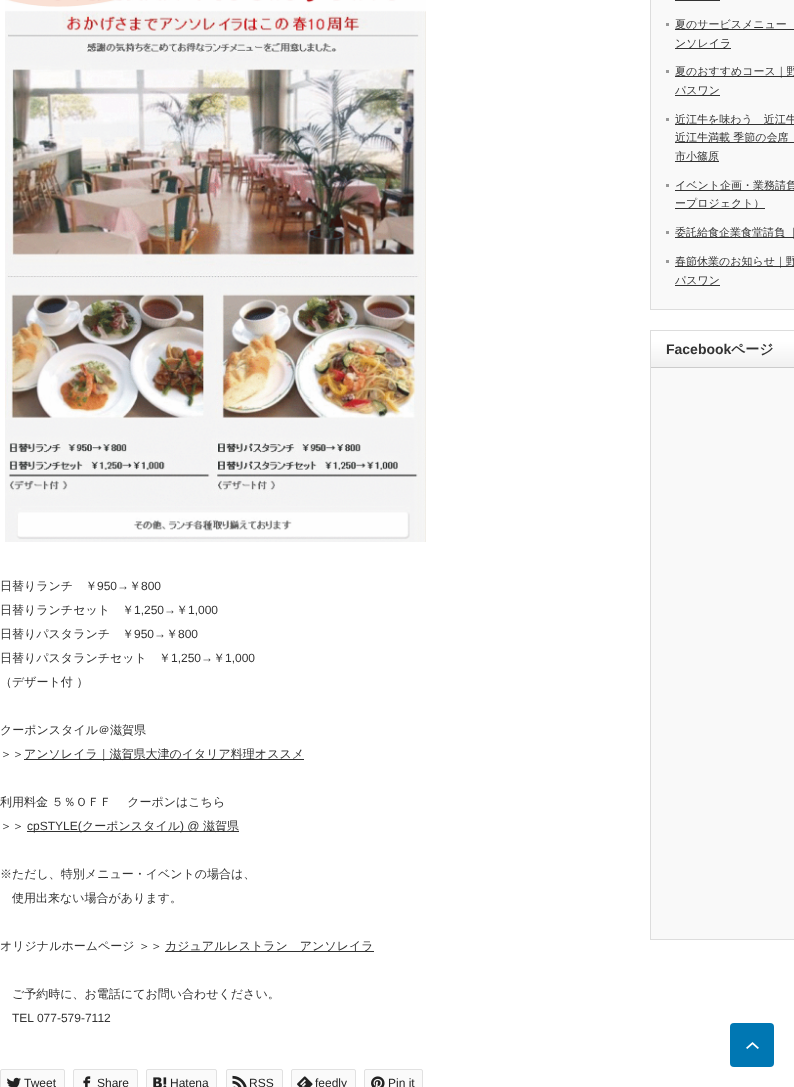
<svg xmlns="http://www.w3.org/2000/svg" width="794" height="1087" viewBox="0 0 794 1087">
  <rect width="100%" height="100%" fill="rgb(255,255,255)"/>
  <rect x="650.5" y="-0.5" width="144" height="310" fill="rgb(249,249,249)" stroke="rgb(221,221,221)"/>
  <rect x="675" y="0" width="45" height="1" fill="rgb(51,51,51)"/>
  <rect x="666" y="23" width="3" height="3" fill="rgb(153,153,153)"/>
  <rect x="675" y="29" width="119" height="1" fill="rgb(51,51,51)"/>
  <text x="675" y="28" font-family="WenQuanYi Zen Hei" font-size="11" font-weight="500" fill="rgb(51,51,51)">夏のサービスメニュー</text>
  <rect x="675" y="48" width="56" height="1" fill="rgb(51,51,51)"/>
  <text x="675" y="47" font-family="WenQuanYi Zen Hei" font-size="11" font-weight="500" fill="rgb(51,51,51)">ンソレイラ</text>
  <rect x="666" y="70" width="3" height="3" fill="rgb(153,153,153)"/>
  <rect x="675" y="76" width="119" height="1" fill="rgb(51,51,51)"/>
  <text x="675" y="75" font-family="WenQuanYi Zen Hei" font-size="11" font-weight="500" fill="rgb(51,51,51)">夏のおすすめコース｜野</text>
  <rect x="675" y="95" width="45" height="1" fill="rgb(51,51,51)"/>
  <text x="675" y="94" font-family="WenQuanYi Zen Hei" font-size="11" font-weight="500" fill="rgb(51,51,51)">パスワン</text>
  <rect x="666" y="118" width="3" height="3" fill="rgb(153,153,153)"/>
  <rect x="675" y="124" width="119" height="1" fill="rgb(51,51,51)"/>
  <text x="675" y="123" font-family="WenQuanYi Zen Hei" font-size="11" font-weight="500" fill="rgb(51,51,51)">近江牛を味わう　近江牛</text>
  <rect x="675" y="142" width="119" height="1" fill="rgb(51,51,51)"/>
  <text x="675" y="141" font-family="WenQuanYi Zen Hei" font-size="11" font-weight="500" fill="rgb(51,51,51)">近江牛満載 季節の会席</text>
  <rect x="675" y="161" width="44" height="1" fill="rgb(51,51,51)"/>
  <text x="675" y="160" font-family="WenQuanYi Zen Hei" font-size="11" font-weight="500" fill="rgb(51,51,51)">市小篠原</text>
  <rect x="666" y="184" width="3" height="3" fill="rgb(153,153,153)"/>
  <rect x="675" y="190" width="119" height="1" fill="rgb(51,51,51)"/>
  <text x="675" y="189" font-family="WenQuanYi Zen Hei" font-size="11" font-weight="500" fill="rgb(51,51,51)">イベント企画・業務請負</text>
  <rect x="675" y="208" width="90" height="1" fill="rgb(51,51,51)"/>
  <text x="675" y="207" font-family="WenQuanYi Zen Hei" font-size="11" font-weight="500" fill="rgb(51,51,51)">ープロジェクト）</text>
  <rect x="666" y="231" width="3" height="3" fill="rgb(153,153,153)"/>
  <rect x="675" y="237" width="119" height="1" fill="rgb(51,51,51)"/>
  <text x="675" y="236" font-family="WenQuanYi Zen Hei" font-size="11" font-weight="500" fill="rgb(51,51,51)">委託給食企業食堂請負 ｜</text>
  <rect x="666" y="260" width="3" height="3" fill="rgb(153,153,153)"/>
  <rect x="675" y="266" width="119" height="1" fill="rgb(51,51,51)"/>
  <text x="675" y="265" font-family="WenQuanYi Zen Hei" font-size="11" font-weight="500" fill="rgb(51,51,51)">春節休業のお知らせ｜野</text>
  <rect x="675" y="285" width="45" height="1" fill="rgb(51,51,51)"/>
  <text x="675" y="284" font-family="WenQuanYi Zen Hei" font-size="11" font-weight="500" fill="rgb(51,51,51)">パスワン</text>
  <rect x="651" y="368" width="143" height="571" fill="rgb(249,249,249)"/>
  <rect x="650.5" y="330.5" width="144" height="609" fill="none" stroke="rgb(221,221,221)"/>
  <image x="651" y="331" width="143" height="36" href="pic1.png"/>
  <rect x="651" y="367" width="143" height="1" fill="rgb(204,204,204)"/>
  <text x="666" y="354" font-family="Liberation Sans" font-size="14" font-weight="bold" fill="rgb(51,51,51)">Facebook</text>
  <text x="731" y="354" font-family="WenQuanYi Zen Hei" font-size="14" font-weight="bold" fill="rgb(51,51,51)">ページ</text>
  <image x="5" y="0" width="421" height="542" href="pic2.png"/>
  <text x="0" y="590" font-family="WenQuanYi Zen Hei" font-size="12" font-weight="500" fill="rgb(51,51,51)">日替りランチ　￥</text>
  <text x="97" y="590" font-family="Liberation Sans" font-size="12" fill="rgb(51,51,51)">950→</text>
  <text x="129" y="590" font-family="WenQuanYi Zen Hei" font-size="12" font-weight="500" fill="rgb(51,51,51)">￥</text>
  <text x="141" y="590" font-family="Liberation Sans" font-size="12" fill="rgb(51,51,51)">800</text>
  <text x="0" y="614" font-family="WenQuanYi Zen Hei" font-size="12" font-weight="500" fill="rgb(51,51,51)">日替りランチセット　￥</text>
  <text x="134" y="614" font-family="Liberation Sans" font-size="12" fill="rgb(51,51,51)">1,250→</text>
  <text x="176" y="614" font-family="WenQuanYi Zen Hei" font-size="12" font-weight="500" fill="rgb(51,51,51)">￥</text>
  <text x="188" y="614" font-family="Liberation Sans" font-size="12" fill="rgb(51,51,51)">1,000</text>
  <text x="0" y="638" font-family="WenQuanYi Zen Hei" font-size="12" font-weight="500" fill="rgb(51,51,51)">日替りパスタランチ　￥</text>
  <text x="134" y="638" font-family="Liberation Sans" font-size="12" fill="rgb(51,51,51)">950→</text>
  <text x="166" y="638" font-family="WenQuanYi Zen Hei" font-size="12" font-weight="500" fill="rgb(51,51,51)">￥</text>
  <text x="178" y="638" font-family="Liberation Sans" font-size="12" fill="rgb(51,51,51)">800</text>
  <text x="0" y="662" font-family="WenQuanYi Zen Hei" font-size="12" font-weight="500" fill="rgb(51,51,51)">日替りパスタランチセット　￥</text>
  <text x="171" y="662" font-family="Liberation Sans" font-size="12" fill="rgb(51,51,51)">1,250→</text>
  <text x="213" y="662" font-family="WenQuanYi Zen Hei" font-size="12" font-weight="500" fill="rgb(51,51,51)">￥</text>
  <text x="225" y="662" font-family="Liberation Sans" font-size="12" fill="rgb(51,51,51)">1,000</text>
  <g font-family="WenQuanYi Zen Hei" font-size="12" font-weight="500" fill="rgb(51,51,51)">
    <text x="0" y="686">（デザート付 ）</text>
    <text x="0" y="734">クーポンスタイル＠滋賀県</text>
    <text x="0" y="758">＞＞</text>
  </g>
  <rect x="24" y="759" width="280" height="1" fill="rgb(51,51,51)"/>
  <g font-family="WenQuanYi Zen Hei" font-size="12" font-weight="500" fill="rgb(51,51,51)">
    <text x="24" y="758">アンソレイラ｜滋賀県大津のイタリア料理オススメ</text>
    <text x="0" y="806">利用料金 ５％ＯＦＦ 　クーポンはこちら</text>
    <text x="0" y="830">＞＞</text>
  </g>
  <rect x="27" y="831" width="212" height="1" fill="rgb(51,51,51)"/>
  <text x="27" y="830" font-family="Liberation Sans" font-size="12" fill="rgb(51,51,51)">cpSTYLE(</text>
  <text x="82" y="830" font-family="WenQuanYi Zen Hei" font-size="12" font-weight="500" fill="rgb(51,51,51)">クーポンスタイル</text>
  <text x="180" y="830" font-family="Liberation Sans" font-size="12" fill="rgb(51,51,51)">) @</text>
  <g font-family="WenQuanYi Zen Hei" font-size="12" font-weight="500" fill="rgb(51,51,51)">
    <text x="203" y="830">滋賀県</text>
    <text x="0" y="878">※ただし、特別メニュー・イベントの場合は、</text>
    <text x="12" y="902">使用出来ない場合があります。</text>
    <text x="0" y="950">オリジナルホームページ ＞＞</text>
  </g>
  <rect x="165" y="951" width="209" height="1" fill="rgb(51,51,51)"/>
  <g font-family="WenQuanYi Zen Hei" font-size="12" font-weight="500" fill="rgb(51,51,51)">
    <text x="165" y="950">カジュアルレストラン　アンソレイラ</text>
    <text x="12" y="998">ご予約時に、お電話にてお問い合わせください。</text>
  </g>
  <text x="12" y="1022" font-family="Liberation Sans" font-size="12" fill="rgb(51,51,51)">TEL 077-579-7112</text>
  <rect x="0.5" y="1069.5" width="64" height="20" rx="1.5" fill="rgb(250,250,250)" stroke="rgb(225,225,225)"/>
  <image x="7" y="1077" width="14" height="10" href="pic3.png"/>
  <text x="24" y="1087" font-family="Liberation Sans" font-size="12" fill="rgb(34,34,34)">Tweet</text>
  <rect x="73.5" y="1069.5" width="64" height="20" rx="1.5" fill="rgb(250,250,250)" stroke="rgb(225,225,225)"/>
  <image x="83" y="1076" width="8" height="11" href="pic4.png"/>
  <text x="97" y="1087" font-family="Liberation Sans" font-size="12" fill="rgb(34,34,34)">Share</text>
  <rect x="146.5" y="1069.5" width="70" height="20" rx="1.5" fill="rgb(250,250,250)" stroke="rgb(225,225,225)"/>
  <image x="153" y="1077" width="14" height="10" href="pic5.png"/>
  <text x="170" y="1087" font-family="Liberation Sans" font-size="12" fill="rgb(34,34,34)">Hatena</text>
  <rect x="226.5" y="1069.5" width="56" height="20" rx="1.5" fill="rgb(250,250,250)" stroke="rgb(225,225,225)"/>
  <image x="232" y="1075" width="15" height="12" href="pic6.png"/>
  <text x="249" y="1087" font-family="Liberation Sans" font-size="12" fill="rgb(34,34,34)">RSS</text>
  <rect x="291.5" y="1069.5" width="64" height="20" rx="1.5" fill="rgb(250,250,250)" stroke="rgb(225,225,225)"/>
  <image x="297" y="1076" width="16" height="11" href="pic7.png"/>
  <text x="315" y="1087" font-family="Liberation Sans" font-size="12" fill="rgb(34,34,34)">feedly</text>
  <rect x="364.5" y="1069.5" width="58" height="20" rx="1.5" fill="rgb(250,250,250)" stroke="rgb(225,225,225)"/>
  <image x="371" y="1076" width="14" height="11" href="pic8.png"/>
  <text x="388" y="1087" font-family="Liberation Sans" font-size="12" fill="rgb(34,34,34)">Pin it</text>
  <rect x="730" y="1023" width="44" height="44" rx="4" fill="rgb(0,119,179)"/>
  <image x="746" y="1042" width="13" height="7" href="pic9.png"/>
</svg>
